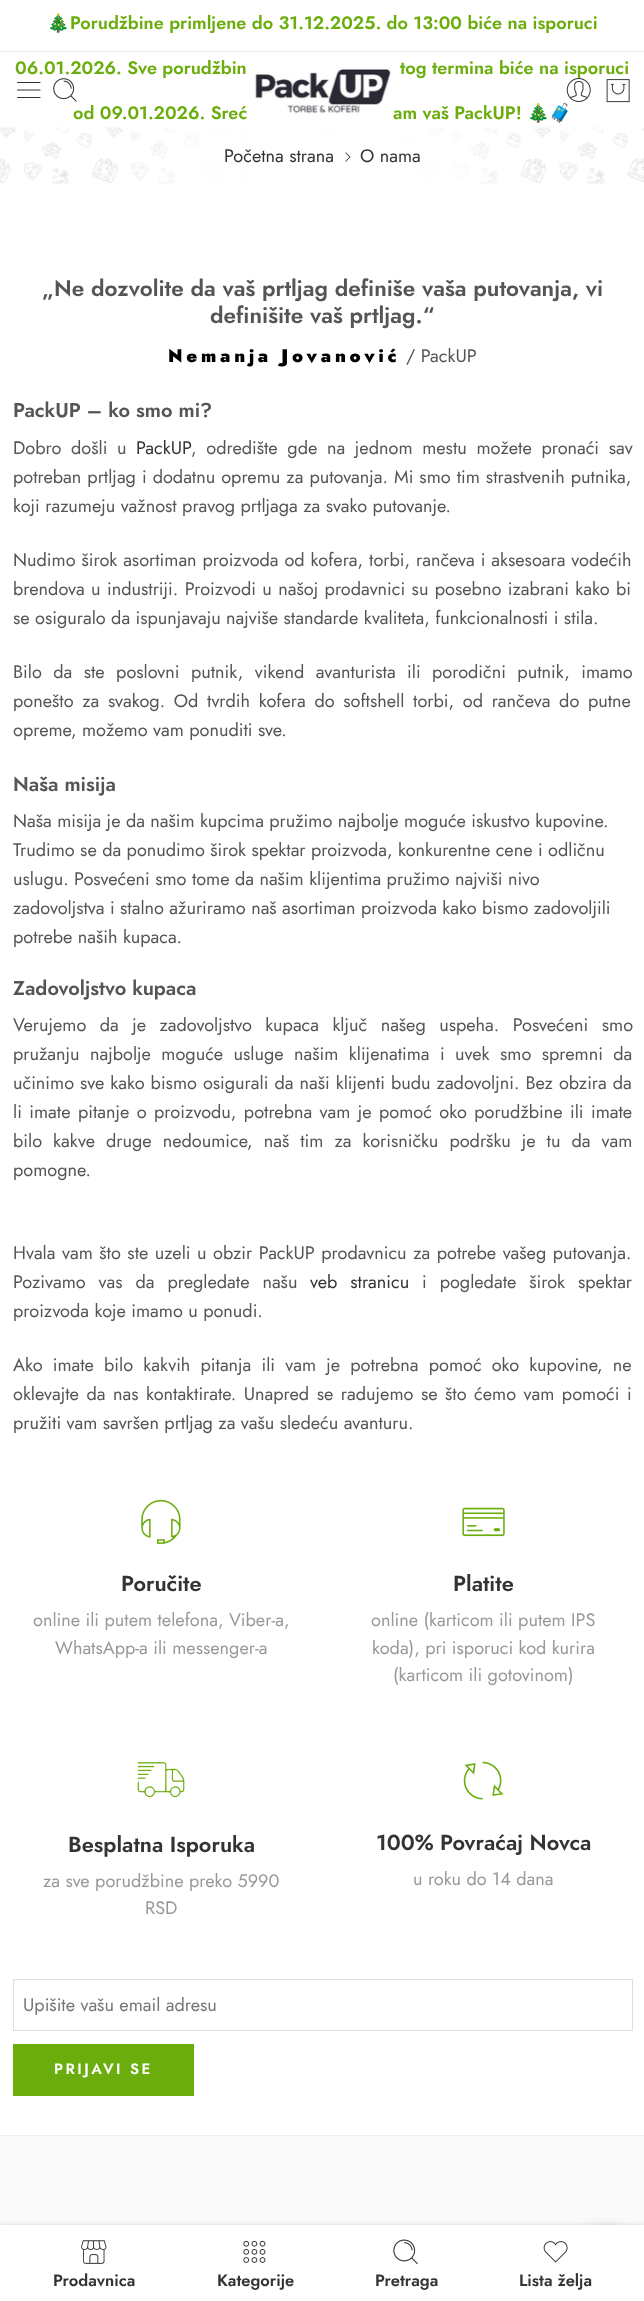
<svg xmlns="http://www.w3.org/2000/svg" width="644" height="2301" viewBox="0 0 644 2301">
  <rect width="100%" height="100%" fill="rgb(255,255,255)"/>
  <rect x="0" y="51" width="644" height="1" fill="rgb(236,236,236)"/>
  <text x="47" y="29" font-family="Noto Color Emoji" font-size="18.1" font-weight="bold" fill="rgb(107,173,13)">🎄</text>
  <g font-family="Jost" font-size="18.1" font-weight="600" fill="rgb(107,173,13)">
    <text x="70" y="29">Porudžbine primljene do 31.12.2025. do 13:00 biće na isporuci</text>
    <text x="15" y="74">06.01.2026. Sve porudžbin</text>
    <text x="400" y="74">tog termina biće na isporuci</text>
    <text x="73" y="119">od 09.01.2026. Sreć</text>
    <text x="393" y="119">am vaš PackUP!</text>
  </g>
  <text x="527" y="119" font-family="Noto Color Emoji" font-size="18.1" font-weight="bold" fill="rgb(107,173,13)">🎄🧳</text>
  <path d="M17.5 90H40M17.5 82.5H40M17.5 97.5H40" fill="none" stroke="rgb(51,51,51)" stroke-width="1.2" stroke-linecap="round" stroke-linejoin="round"/>
  <image x="53" y="78" width="24" height="24" href="pic1.png"/>
  <image x="253" y="65" width="139" height="50" href="pic2.png"/>
  <image x="566" y="78" width="25" height="24" href="pic3.png"/>
  <image x="606" y="79" width="24" height="24" href="pic4.png"/>
  <image x="0" y="127" width="644" height="57" href="pic5.png"/>
  <text x="224" y="162" font-family="Jost" font-size="18.1" fill="rgb(51,51,51)">Početna strana</text>
  <image x="345" y="152" width="6" height="10" href="pic6.png"/>
  <text x="360" y="162" font-family="Jost" font-size="18.1" fill="rgb(51,51,51)">O nama</text>
  <g font-family="Jost" font-size="22.5" font-weight="600" fill="rgb(85,85,85)">
    <text x="42" y="296">„Ne dozvolite da vaš prtljag definiše vaša putovanja, vi</text>
    <text x="210" y="323">definišite vaš prtljag.“</text>
  </g>
  <text x="168" y="362" font-family="Jost" font-size="18.1" font-weight="900" letter-spacing="3.75" fill="rgb(0,0,0)">Nemanja Jovanović</text>
  <text x="406" y="362" font-family="Jost" font-size="18.1" fill="rgb(85,85,85)">/ PackUP</text>
  <text x="13" y="417" font-family="Jost" font-size="20" font-weight="600" fill="rgb(85,85,85)">PackUP – ko smo mi?</text>
  <text x="13" y="454" word-spacing="4.25" font-family="Jost" font-size="18.1" fill="rgb(85,85,85)">Dobro došli u</text>
  <text x="136" y="454" font-family="Jost" font-size="18.1" fill="rgb(51,51,51)">PackUP</text>
  <g font-family="Jost" font-size="18.1" fill="rgb(85,85,85)">
    <text x="191" y="454" word-spacing="4.25">, odredište gde na jednom mestu možete pronaći sav</text>
    <text>
      <tspan x="13" y="483" word-spacing="0.6">potreban prtljag i dodatnu opremu za putovanja. Mi smo tim strastvenih putnika,</tspan>
      <tspan x="13" y="512">koji razumeju važnost pravog prtljaga za svako putovanje.</tspan>
    </text>
    <text>
      <tspan x="13" y="566" word-spacing="0.5">Nudimo širok asortiman proizvoda od kofera, torbi, rančeva i aksesoara vodećih</tspan>
      <tspan x="13" y="595" word-spacing="1">brendova u industriji. Proizvodi u našoj prodavnici su posebno izabrani kako bi</tspan>
      <tspan x="13" y="624">se osiguralo da ispunjavaju najviše standarde kvaliteta, funkcionalnosti i stila.</tspan>
    </text>
    <text>
      <tspan x="13" y="678" word-spacing="6">Bilo da ste poslovni putnik, vikend avanturista ili porodični putnik, imamo</tspan>
      <tspan x="13" y="707" word-spacing="3.25">ponešto za svakog. Od tvrdih kofera do softshell torbi, od rančeva do putne</tspan>
      <tspan x="13" y="736">opreme, možemo vam ponuditi sve.</tspan>
    </text>
  </g>
  <text x="13" y="791" font-family="Jost" font-size="20" font-weight="600" fill="rgb(85,85,85)">Naša misija</text>
  <g font-family="Jost" font-size="18.1" fill="rgb(85,85,85)">
    <text>
      <tspan x="13" y="827">Naša misija je da našim kupcima pružimo najbolje moguće iskustvo kupovine.</tspan>
      <tspan x="13" y="856">Trudimo se da ponudimo širok spektar proizvoda, konkurentne cene i odličnu</tspan>
      <tspan x="13" y="885">uslugu. Posvećeni smo tome da našim klijentima pružimo najviši nivo</tspan>
      <tspan x="13" y="914">zadovoljstva i stalno ažuriramo naš asortiman proizvoda kako bismo zadovoljili</tspan>
      <tspan x="13" y="943">potrebe naših kupaca.</tspan>
    </text>
  </g>
  <text x="13" y="995" font-family="Jost" font-size="20" font-weight="600" fill="rgb(85,85,85)">Zadovoljstvo kupaca</text>
  <g font-family="Jost" font-size="18.1" fill="rgb(85,85,85)">
    <text>
      <tspan x="13" y="1031" word-spacing="8">Verujemo da je zadovoljstvo kupaca ključ našeg uspeha. Posvećeni smo</tspan>
      <tspan x="13" y="1060" word-spacing="5">pružanju najbolje moguće usluge našim klijenatima i uvek smo spremni da</tspan>
      <tspan x="13" y="1089" word-spacing="0.6">učinimo sve kako bismo osigurali da naši klijenti budu zadovoljni. Bez obzira da</tspan>
      <tspan x="13" y="1118" word-spacing="2">li imate pitanje o proizvodu, potrebna vam je pomoć oko porudžbine ili imate</tspan>
      <tspan x="13" y="1147" word-spacing="5.6">bilo kakve druge nedoumice, naš tim za korisničku podršku je tu da vam</tspan>
      <tspan x="13" y="1176">pomogne.</tspan>
    </text>
    <text>
      <tspan x="13" y="1259" word-spacing="1.1">Hvala vam što ste uzeli u obzir PackUP prodavnicu za potrebe vašeg putovanja.</tspan>
      <tspan x="13" y="1288" word-spacing="7.5">Pozivamo vas da pregledate našu</tspan>
    </text>
  </g>
  <text x="310" y="1288" word-spacing="7.5" font-family="Jost" font-size="18.1" fill="rgb(51,51,51)">veb stranicu</text>
  <g font-family="Jost" font-size="18.1" fill="rgb(85,85,85)">
    <text x="422" y="1288" word-spacing="7.5">i pogledate širok spektar</text>
    <text x="13" y="1317">proizvoda koje imamo u ponudi.</text>
    <text>
      <tspan x="13" y="1371" word-spacing="4.75">Ako imate bilo kakvih pitanja ili vam je potrebna pomoć oko kupovine, ne</tspan>
      <tspan x="13" y="1400" word-spacing="2.1">oklevajte da nas kontaktirate. Unapred se radujemo se što ćemo vam pomoći i</tspan>
      <tspan x="13" y="1429">pružiti vam savršen prtljag za vašu sledeću avanturu.</tspan>
    </text>
  </g>
  <image x="141" y="1499" width="40" height="45" href="pic7.png"/>
  <text x="121" y="1591" font-family="Jost" font-size="21.75" font-weight="600" fill="rgb(51,51,51)">Poručite</text>
  <g font-family="Jost" font-size="18.1" fill="rgb(153,153,153)">
    <text x="33" y="1626">online ili putem telefona, Viber-a,</text>
    <text x="55" y="1654">WhatsApp-a ili messenger-a</text>
  </g>
  <image x="462" y="1507" width="43" height="30" href="pic8.png"/>
  <text x="453" y="1591" font-family="Jost" font-size="21.75" font-weight="600" fill="rgb(51,51,51)">Platite</text>
  <g font-family="Jost" font-size="18.1" fill="rgb(153,153,153)">
    <text x="371" y="1626">online (karticom ili putem IPS</text>
    <text x="372" y="1654">koda), pri isporuci kod kurira</text>
    <text x="393" y="1681">(karticom ili gotovinom)</text>
  </g>
  <image x="137" y="1762" width="48" height="36" href="pic9.png"/>
  <text x="68" y="1852" font-family="Jost" font-size="21.75" font-weight="600" fill="rgb(51,51,51)">Besplatna Isporuka</text>
  <g font-family="Jost" font-size="18.1" fill="rgb(153,153,153)">
    <text x="43" y="1887">za sve porudžbine preko 5990</text>
    <text x="145" y="1914">RSD</text>
  </g>
  <image x="463" y="1761" width="41" height="39" href="pic10.png"/>
  <text x="376" y="1850" font-family="Jost" font-size="21.75" font-weight="600" fill="rgb(51,51,51)">100% Povraćaj Novca</text>
  <text x="413" y="1885" font-family="Jost" font-size="18.1" fill="rgb(153,153,153)">u roku do 14 dana</text>
  <rect x="13.5" y="1979.5" width="619" height="51" fill="none" stroke="rgb(222,222,222)"/>
  <text x="23" y="2011" font-family="Jost" font-size="18.1" fill="rgb(117,117,117)">Upišite vašu email adresu</text>
  <rect x="13" y="2044" width="181" height="52" fill="rgb(107,173,13)"/>
  <text x="54" y="2074" font-family="Jost" font-size="15" font-weight="600" letter-spacing="2.5" fill="rgb(255,255,255)">PRIJAVI SE</text>
  <rect x="0" y="2136" width="644" height="89" fill="rgb(250,250,250)"/>
  <rect x="0" y="2135" width="644" height="1" fill="rgb(239,239,239)"/>
  <rect x="0" y="2224" width="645" height="76" fill="rgba(0,0,0,0.1)" filter="blur(2px)"/>
  <rect x="576" y="2226" width="59" height="59" rx="29.5" fill="rgba(0,0,0,0.1)" filter="blur(6px)"/>
  <rect x="0" y="2225" width="644" height="76" fill="rgb(255,255,255)"/>
  <image x="81" y="2240" width="26" height="24" href="pic11.png"/>
  <text x="53" y="2286" font-family="Jost" font-size="16.5" font-weight="600" fill="rgb(51,51,51)">Prodavnica</text>
  <image x="243" y="2240" width="23" height="23" href="pic12.png"/>
  <text x="217" y="2286" font-family="Jost" font-size="16.5" font-weight="600" fill="rgb(51,51,51)">Kategorije</text>
  <image x="393" y="2239" width="25" height="26" href="pic13.png"/>
  <text x="375" y="2286" font-family="Jost" font-size="16.5" font-weight="600" fill="rgb(51,51,51)">Pretraga</text>
  <image x="543" y="2241" width="25" height="22" href="pic14.png"/>
  <text x="519" y="2286" font-family="Jost" font-size="16.5" font-weight="600" fill="rgb(51,51,51)">Lista želja</text>
</svg>
